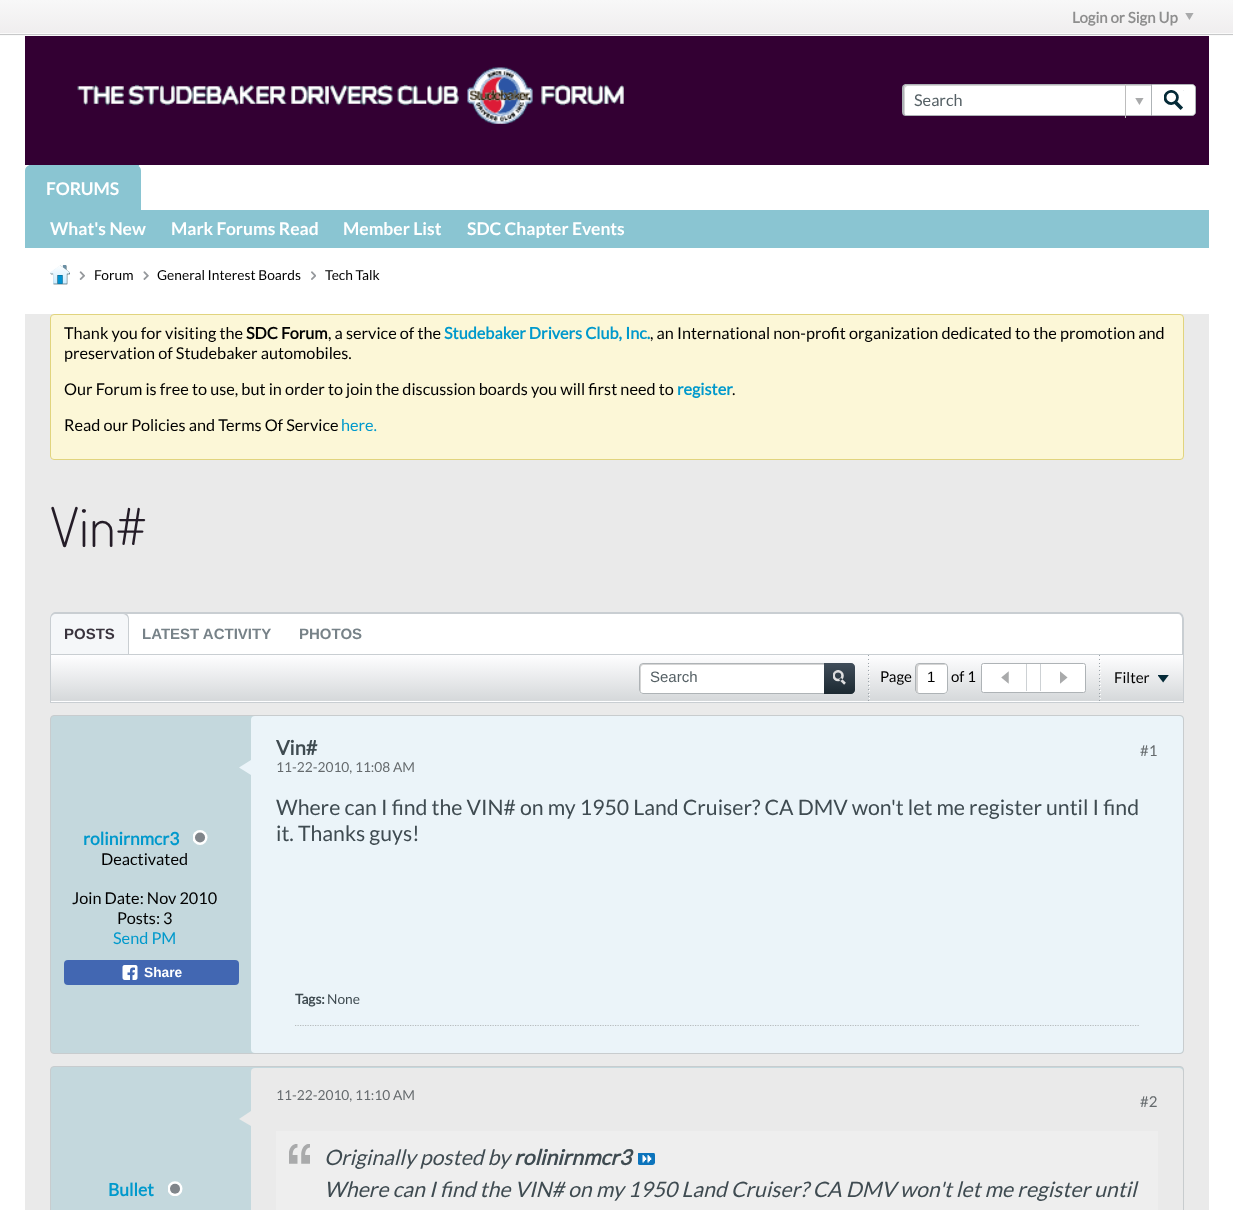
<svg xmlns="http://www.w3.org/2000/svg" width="1233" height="1210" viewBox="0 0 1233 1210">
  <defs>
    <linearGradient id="g1" gradientUnits="userSpaceOnUse" x1="617" y1="0" x2="617" y2="35"><stop offset="0" stop-color="rgb(248,248,248)"/><stop offset="1" stop-color="rgb(239,237,238)"/></linearGradient>
    <linearGradient id="g2" gradientUnits="userSpaceOnUse" x1="617" y1="655" x2="617" y2="701"><stop offset="0" stop-color="rgb(254,254,255)"/><stop offset="1" stop-color="rgb(213,216,218)"/></linearGradient>
    <linearGradient id="g3" gradientUnits="userSpaceOnUse" x1="617" y1="701" x2="617" y2="748"><stop offset="0" stop-color="rgb(254,254,255)"/><stop offset="1" stop-color="rgb(213,216,218)"/></linearGradient>
    <linearGradient id="g4" gradientUnits="userSpaceOnUse" x1="839" y1="663" x2="839" y2="694"><stop offset="0" stop-color="rgb(64,77,90)"/><stop offset="1" stop-color="rgb(28,41,49)"/></linearGradient>
  </defs>
  <rect width="100%" height="100%" fill="rgb(255,255,255)"/>
  <rect x="0" y="0" width="1233" height="33" fill="url(#g1)"/>
  <text x="1072" y="23" font-family="'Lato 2'" font-size="15" font-weight="bold" fill="rgb(142,142,142)">Login or Sign Up</text>
  <image x="1185" y="13" width="9" height="7" href="pic1.png"/>
  <rect x="0" y="33" width="1233" height="3" fill="rgb(250,250,250)"/>
  <rect x="0" y="34" width="1233" height="1" fill="rgb(199,200,201)"/>
  <rect x="25" y="36" width="1184" height="129" fill="rgb(51,0,51)"/>
  <image x="77" y="67" width="547" height="57" href="pic2.png"/>
  <path d="M907 84H1151V116H907C905 116 903 114 903 112V88C903 86 905 84 907 84Z" fill="rgb(255,255,255)"/>
  <path d="M908 86H1151V85H906C905 85 904 86 904 88V112C904 113 904 114 905 115V93C905 91 904 86 908 86Z" fill="rgb(213,213,213)"/>
  <path d="M906 84H1151V116H906C904 116 902 115 902 112V88C902 85 904 84 906 84ZM906 85H1151V115H906C905 115 904 114 904 112V88C904 86 905 85 906 85Z" fill="rgb(174,179,182)" fill-rule="evenodd"/>
  <text x="914" y="106" font-family="Lato" font-size="16.25" fill="rgb(85,96,101)">Search</text>
  <rect x="1125" y="84" width="1" height="34" fill="rgb(189,189,189)"/>
  <image x="1135" y="98" width="9" height="7" href="pic3.png"/>
  <path d="M1151.5 84.5H1192C1194 84.5 1195.5 86 1195.5 88V112C1195.5 114 1194 115.5 1192 115.5H1151.5Z" fill="rgb(255,255,255)" stroke="rgb(174,179,182)"/>
  <image x="1164" y="90" width="20" height="20" href="pic4.png"/>
  <path d="M31 165H135C138.5 165 141 167.5 141 171V210H25V171C25 167.5 27.5 165 31 165Z" fill="rgb(138,197,210)"/>
  <rect x="29" y="165" width="110" height="1" fill="rgb(138,197,210)"/>
  <text x="46" y="195" font-family="Lato" font-size="17.5" font-weight="bold" fill="rgb(255,255,255)">FORUMS</text>
  <rect x="25" y="210" width="1184" height="38" fill="rgb(138,197,210)"/>
  <g font-family="Lato" font-size="17.5" font-weight="bold" fill="rgb(255,255,255)">
    <text x="50" y="235">What's New</text>
    <text x="171" y="235">Mark Forums Read</text>
    <text x="343" y="235">Member List</text>
    <text x="467" y="235">SDC Chapter Events</text>
  </g>
  <image x="50" y="265" width="20" height="20" href="pic5.png"/>
  <image x="79" y="271" width="6" height="9" href="pic6.png"/>
  <text x="94" y="280" font-family="Lato" font-size="13.75" fill="rgb(0,0,0)">Forum</text>
  <image x="143" y="271" width="6" height="9" href="pic7.png"/>
  <text x="157" y="280" font-family="Lato" font-size="13.75" fill="rgb(0,0,0)">General Interest Boards</text>
  <image x="311" y="271" width="5" height="9" href="pic8.png"/>
  <text x="325" y="280" font-family="Lato" font-size="13.75" fill="rgb(0,0,0)">Tech Talk</text>
  <rect x="25" y="314" width="1184" height="896" fill="rgb(234,234,234)"/>
  <rect x="50.5" y="314.5" width="1133" height="145" rx="3.5" fill="rgb(252,247,215)" stroke="rgb(225,212,126)"/>
  <text x="64" y="339" font-family="Lato" font-size="16.25" fill="rgb(0,0,0)">Thank you for visiting the</text>
  <text x="246" y="339" font-family="'Lato 2'" font-size="16.25" font-weight="bold" fill="rgb(0,0,0)">SDC Forum</text>
  <text x="328" y="339" font-family="Lato" font-size="16.25" fill="rgb(0,0,0)">, a service of the</text>
  <text x="444" y="339" font-family="'Lato 2'" font-size="16.25" font-weight="bold" fill="rgb(0,153,204)">Studebaker Drivers Club, Inc.</text>
  <g font-family="Lato" font-size="16.25" fill="rgb(0,0,0)">
    <text x="650" y="339">, an International non-profit organization dedicated to the promotion and</text>
    <text x="64" y="359">preservation of Studebaker automobiles.</text>
    <text x="64" y="395">Our Forum is free to use, but in order to join the discussion boards you will first need to</text>
  </g>
  <text x="677" y="395" font-family="'Lato 2'" font-size="16.25" font-weight="bold" fill="rgb(0,153,204)">register</text>
  <g font-family="Lato" font-size="16.25" fill="rgb(0,0,0)">
    <text x="732" y="395">.</text>
    <text x="64" y="431">Read our Policies and Terms Of Service</text>
  </g>
  <text x="341" y="431" font-family="Lato" font-size="16.25" fill="rgb(0,153,204)">here.</text>
  <text x="50" y="547" font-family="Dosis" font-size="55" font-weight="300" fill="rgb(36,28,39)">Vin#</text>
  <path d="M56 613H1178C1181.5 613 1184 615.5 1184 619V654H50V619C50 615.5 52.5 613 56 613Z" fill="rgb(255,255,255)"/>
  <path d="M56 612H1178C1181 612 1184 615 1184 619V654H50V619C50 615 53 612 56 612ZM56 614H1178C1180 614 1182 616 1182 619V654H51V619C51 616 53 614 56 614Z" fill="rgb(201,206,210)" fill-rule="evenodd"/>
  <path d="M55 614H372C374 614 376 616 376 618V654H51V618C51 616 53 614 55 614Z" fill="rgb(255,255,255)"/>
  <path d="M56 613H123C126.5 613 129 615.5 129 619V654H50V619C50 615.5 52.5 613 56 613Z" fill="rgb(245,247,249)"/>
  <path d="M56 612H122C126 612 129 615 129 619V654H50V619C50 615 53 612 56 612ZM56 614H122C125 614 128 616 128 619V654H51V619C51 616 53 614 56 614Z" fill="rgb(201,206,210)" fill-rule="evenodd"/>
  <text x="64" y="639" font-family="Liberation Sans" font-size="15" font-weight="bold" fill="rgb(58,52,62)">POSTS</text>
  <g font-family="Liberation Sans" font-size="15" font-weight="bold" fill="rgb(119,130,136)">
    <text x="142" y="639">LATEST ACTIVITY</text>
    <text x="299" y="639">PHOTOS</text>
  </g>
  <rect x="51" y="655" width="1132" height="46" fill="url(#g2)"/>
  <rect x="50" y="701" width="1134" height="1" fill="url(#g3)"/>
  <rect x="50.5" y="654.5" width="1133" height="48" fill="none" stroke="rgb(201,206,210)"/>
  <rect x="639" y="663" width="216" height="31" rx="4" fill="rgb(255,255,255)"/>
  <path d="M644 665H854C853 665 852 664 852 664H642C641 664 640 665 640 666V690C640 691 641 692 641 693V672C641 669 640 665 644 665Z" fill="rgb(213,213,213)"/>
  <rect x="639.5" y="663.5" width="215" height="30" rx="3.5" fill="none" stroke="rgb(174,179,182)"/>
  <text x="650" y="682" font-family="Liberation Sans" font-size="15" fill="rgb(85,96,101)">Search</text>
  <path d="M824 663H851C853 663 855 665 855 667V690C855 692 853 694 851 694H824Z" fill="url(#g4)"/>
  <image x="833" y="670" width="13" height="15" href="pic9.png"/>
  <image x="868" y="655" width="1" height="46" href="pic10.png"/>
  <image x="869" y="660" width="1" height="39" href="pic11.png"/>
  <text x="880" y="682" font-family="Lato" font-size="15" fill="rgb(0,0,0)">Page</text>
  <rect x="915" y="663" width="33" height="31" rx="4" fill="rgb(255,255,255)"/>
  <path d="M920 665H945.5C945 664.5 944.5 664 943.5 664H918.5C917 664 916 665 916 666.5V690.5C916 692 917 693 918.5 693L918 691V668C918 666 919 665 920 665Z" fill="rgb(213,213,213)"/>
  <rect x="915.5" y="663.5" width="32" height="30" rx="3.5" fill="none" stroke="rgb(174,179,182)"/>
  <text x="927" y="682" font-family="Liberation Sans" font-size="15" fill="rgb(0,0,0)">1</text>
  <text x="951" y="682" font-family="Lato" font-size="15" fill="rgb(0,0,0)">of 1</text>
  <rect x="981.5" y="663.5" width="104" height="29" rx="2" fill="rgb(255,255,255)" stroke="rgb(174,179,182)"/>
  <rect x="1026" y="664" width="1" height="27" fill="rgb(205,209,212)"/>
  <image x="1001" y="671" width="8" height="13" href="pic12.png"/>
  <rect x="1040" y="664" width="1" height="27" fill="rgb(205,209,212)"/>
  <image x="1060" y="671" width="8" height="13" href="pic13.png"/>
  <image x="1099" y="655" width="1" height="46" href="pic10.png"/>
  <image x="1100" y="660" width="1" height="39" href="pic11.png"/>
  <text x="1114" y="683" font-family="Lato" font-size="15" fill="rgb(0,0,0)">Filter</text>
  <image x="1158" y="675" width="11" height="8" href="pic14.png"/>
  <rect x="50.5" y="715.5" width="1133" height="338" rx="3.5" fill="rgb(196,216,221)" stroke="rgb(200,204,206)"/>
  <text x="83" y="845" font-family="'Lato 2'" font-size="17.5" font-weight="bold" fill="rgb(0,153,204)">rolinirnmcr3</text>
  <image x="193" y="830" width="15" height="15" href="pic15.png"/>
  <g font-family="Lato" font-size="16.25" fill="rgb(0,0,0)">
    <text x="101" y="865">Deactivated</text>
    <text x="72" y="904">Join Date: Nov 2010</text>
    <text x="117" y="924">Posts: 3</text>
  </g>
  <text x="113" y="944" font-family="Lato" font-size="16.25" fill="rgb(0,153,204)">Send PM</text>
  <rect x="64" y="960" width="175" height="25" rx="4" fill="rgb(66,103,178)"/>
  <image x="122" y="965" width="16" height="15" href="pic16.png"/>
  <text x="144" y="977" font-family="Liberation Sans" font-size="13.75" font-weight="bold" fill="rgb(255,255,255)">Share</text>
  <rect x="251" y="716" width="932" height="337" rx="4" fill="rgb(235,244,249)"/>
  <path d="M251 760V775L239 767.5Z" fill="rgb(235,244,249)"/>
  <text x="276" y="755" font-family="'Lato 2'" font-size="20" font-weight="bold" fill="rgb(63,75,81)">Vin#</text>
  <text x="276" y="772" font-family="Lato" font-size="13.75" fill="rgb(101,106,109)">11-22-2010, 11:08 AM</text>
  <text x="1140" y="756" font-family="Lato" font-size="15" fill="rgb(101,106,109)">#1</text>
  <g font-family="Lato" font-size="21.25" fill="rgb(63,75,81)">
    <text>
      <tspan x="276" y="815">Where can I find the VIN# on my 1950 Land Cruiser? CA DMV won't let me register until I find</tspan>
      <tspan x="276" y="841">it. Thanks guys!</tspan>
    </text>
  </g>
  <text x="295" y="1004" font-family="'Lato 2'" font-size="13.75" font-weight="bold" fill="rgb(63,75,81)">Tags:</text>
  <text x="327" y="1004" font-family="Lato" font-size="13.75" fill="rgb(63,75,81)">None</text>
  <path d="M295 1025.5H1139" fill="none" stroke="rgb(183,188,190)" stroke-width="1.2" stroke-dasharray="1.25 1.25"/>
  <rect x="50.5" y="1066.5" width="1133" height="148" rx="3.5" fill="rgb(196,216,221)" stroke="rgb(200,204,206)"/>
  <text x="108" y="1196" font-family="'Lato 2'" font-size="17.5" font-weight="bold" fill="rgb(0,153,204)">Bullet</text>
  <image x="168" y="1181" width="15" height="15" href="pic17.png"/>
  <rect x="251" y="1068" width="932" height="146" rx="4" fill="rgb(234,234,234)"/>
  <path d="M251 1111V1126L239 1119Z" fill="rgb(234,234,234)"/>
  <text x="276" y="1100" font-family="Lato" font-size="13.75" fill="rgb(101,106,109)">11-22-2010, 11:10 AM</text>
  <text x="1140" y="1107" font-family="Lato" font-size="15" fill="rgb(101,106,109)">#2</text>
  <rect x="276" y="1131" width="882" height="79" fill="rgb(238,238,238)"/>
  <image x="289" y="1144" width="21" height="20" href="pic18.png"/>
  <text x="324" y="1165" font-family="Lato" font-size="21.25" font-style="italic" fill="rgb(63,75,81)">Originally posted by</text>
  <text x="514" y="1165" font-family="Lato" font-size="21.25" font-weight="bold" font-style="italic" fill="rgb(63,75,81)">rolinirnmcr3</text>
  <image x="638" y="1153" width="17" height="12" href="pic19.png"/>
  <text x="324" y="1197" font-family="Lato" font-size="21.25" font-style="italic" fill="rgb(63,75,81)">Where can I find the VIN# on my 1950 Land Cruiser? CA DMV won't let me register until</text>
</svg>
